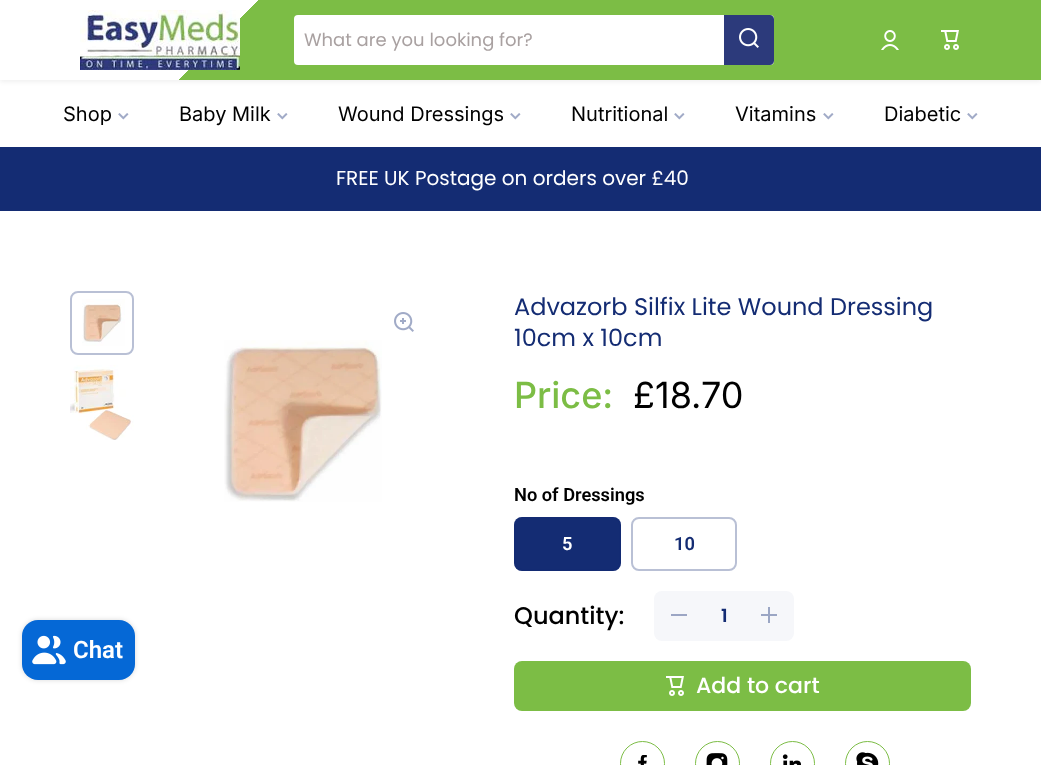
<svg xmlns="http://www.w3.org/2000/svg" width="1041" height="765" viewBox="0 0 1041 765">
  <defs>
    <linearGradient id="g1" gradientUnits="userSpaceOnUse" x1="240" y1="-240" x2="801" y2="320"><stop offset="0.23" stop-color="rgb(255,255,255)"/><stop offset="0.23" stop-color="rgb(124,189,69)"/></linearGradient>
  </defs>
  <rect width="100%" height="100%" fill="rgb(255,255,255)"/>
  <rect x="0" y="2" width="1041" height="80" fill="rgba(0,0,0,0.06)" filter="blur(2px)"/>
  <rect x="0" y="0" width="1041" height="80" fill="url(#g1)"/>
  <image x="80" y="10" width="160" height="60" href="pic1.png"/>
  <rect x="294" y="15" width="480" height="50" rx="4" fill="rgb(255,255,255)"/>
  <text x="304" y="46" font-family="Poppins" font-size="18" fill="rgb(169,161,161)">What are you looking for?</text>
  <path d="M724 15H770C772 15 774 17 774 19V61C774 63 772 65 770 65H724Z" fill="rgb(44,58,123)"/>
  <image x="739" y="28" width="20" height="20" href="pic2.png"/>
  <image x="881" y="30" width="18" height="20" href="pic3.png"/>
  <image x="941" y="30" width="18" height="20" href="pic4.png"/>
  <text x="63" y="121" font-family="Inter" font-size="20" fill="rgb(0,0,0)">Shop</text>
  <image x="118" y="113" width="11" height="7" href="pic5.png"/>
  <text x="179" y="121" font-family="Inter" font-size="20" fill="rgb(0,0,0)">Baby Milk</text>
  <image x="277" y="113" width="11" height="7" href="pic5.png"/>
  <text x="338" y="121" font-family="Inter" font-size="20" fill="rgb(0,0,0)">Wound Dressings</text>
  <image x="510" y="113" width="11" height="7" href="pic5.png"/>
  <text x="571" y="121" font-family="Inter" font-size="20" fill="rgb(0,0,0)">Nutritional</text>
  <image x="674" y="113" width="11" height="7" href="pic5.png"/>
  <text x="735" y="121" font-family="Inter" font-size="20" fill="rgb(0,0,0)">Vitamins</text>
  <image x="823" y="113" width="11" height="7" href="pic5.png"/>
  <text x="884" y="121" font-family="Inter" font-size="20" fill="rgb(0,0,0)">Diabetic</text>
  <image x="967" y="113" width="11" height="7" href="pic5.png"/>
  <rect x="0" y="147" width="1041" height="64" fill="rgb(20,44,115)"/>
  <text x="336" y="185" font-family="Poppins" font-size="20" fill="rgb(255,255,255)">FREE UK Postage on orders over £40</text>
  <rect x="22" y="620" width="113" height="60" rx="16" fill="rgba(0,0,0,0.15)" filter="blur(2.5px)"/>
  <rect x="22" y="620" width="113" height="60" rx="16" fill="rgb(5,104,214)"/>
  <image x="32" y="635" width="34" height="30" href="pic6.png"/>
  <text x="73" y="658" font-family="Roboto" font-size="24" font-weight="600" fill="rgb(255,255,255)">Chat</text>
  <image x="82" y="299" width="43" height="47" href="pic7.png"/>
  <rect x="71" y="292" width="62" height="62" rx="7" fill="none" stroke="rgb(185,192,213)" stroke-width="2"/>
  <image x="70" y="365" width="64" height="75" href="pic8.png"/>
  <image x="394" y="312" width="20" height="20" href="pic9.png"/>
  <image x="224" y="340" width="158" height="162" href="pic10.png"/>
  <g font-family="Poppins" font-size="24" fill="rgb(20,44,115)">
    <text>
      <tspan x="514" y="315">Advazorb Silfix Lite Wound Dressing</tspan>
      <tspan x="514" y="346">10cm x 10cm</tspan>
    </text>
  </g>
  <text x="514" y="408" font-family="Inter" font-size="36" font-weight="500" fill="rgb(124,189,69)">Price:</text>
  <text x="633" y="408" font-family="Inter" font-size="36" fill="rgb(0,0,0)">£18.70</text>
  <text x="514" y="501" font-family="Roboto" font-size="18.25" font-weight="600" fill="rgb(0,0,0)">No of Dressings</text>
  <rect x="514" y="517" width="107" height="54" rx="8" fill="rgb(20,44,115)"/>
  <rect x="515" y="518" width="105" height="52" rx="7" fill="none" stroke="rgba(20,44,115,0.3)" stroke-width="2"/>
  <text x="562" y="550" font-family="Roboto" font-size="18.25" font-weight="600" fill="rgb(255,255,255)">5</text>
  <rect x="632" y="518" width="104" height="52" rx="7" fill="none" stroke="rgb(185,192,213)" stroke-width="2"/>
  <text x="674" y="550" font-family="Roboto" font-size="18.25" font-weight="600" fill="rgb(20,44,115)">10</text>
  <text x="514" y="624" font-family="Poppins" font-size="24" font-weight="500" fill="rgb(0,0,0)">Quantity:</text>
  <rect x="654" y="591" width="140" height="50" rx="8" fill="rgb(246,247,250)"/>
  <rect x="671" y="614" width="16" height="2" fill="rgb(156,166,196)"/>
  <text x="721" y="622" font-family="Poppins" font-size="18.25" font-weight="600" fill="rgb(20,44,115)">1</text>
  <image x="761" y="607" width="16" height="16" href="pic11.png"/>
  <rect x="514" y="661" width="457" height="50" rx="8" fill="rgb(124,189,69)"/>
  <image x="666" y="676" width="18" height="20" href="pic4.png"/>
  <text x="696" y="693" font-family="Poppins" font-size="22" font-weight="500" fill="rgb(255,255,255)">Add to cart</text>
  <circle cx="642.5" cy="763.5" r="22" fill="none" stroke="rgb(124,189,69)"/>
  <image x="638" y="755" width="9" height="10" href="pic12.png"/>
  <circle cx="717.5" cy="763.5" r="22" fill="none" stroke="rgb(124,189,69)"/>
  <image x="706" y="753" width="22" height="12" href="pic13.png"/>
  <circle cx="792.5" cy="763.5" r="22" fill="none" stroke="rgb(124,189,69)"/>
  <image x="782" y="754" width="19" height="11" href="pic14.png"/>
  <circle cx="867.5" cy="763.5" r="22" fill="none" stroke="rgb(124,189,69)"/>
  <image x="856" y="752" width="23" height="13" href="pic15.png"/>
</svg>
